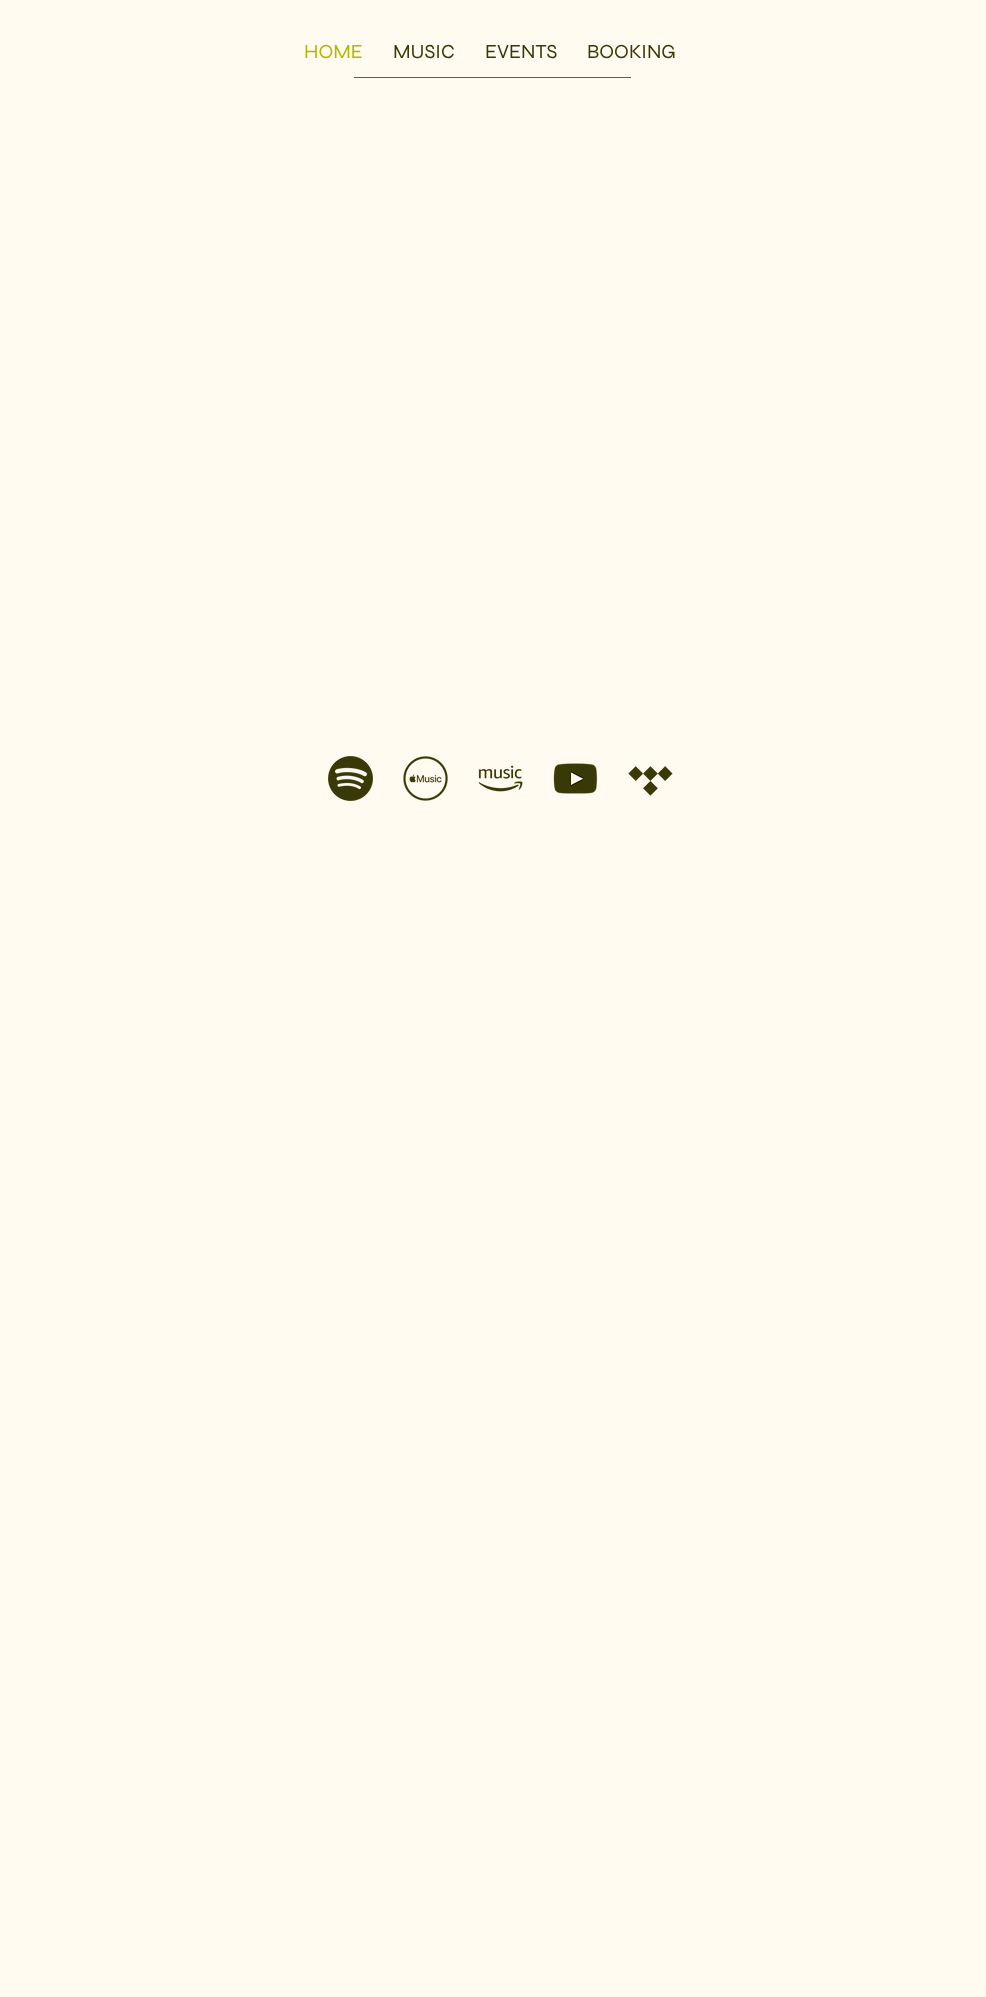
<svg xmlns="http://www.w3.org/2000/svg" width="986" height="1997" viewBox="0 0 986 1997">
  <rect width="100%" height="100%" fill="rgb(255,251,240)"/>
  <text x="304" y="58" font-family="Syne" font-size="20" fill="rgb(180,182,0)">HOME</text>
  <g font-family="Syne" font-size="20" fill="rgb(57,57,7)">
    <text x="393" y="58">MUSIC</text>
    <text x="485" y="58">EVENTS</text>
    <text x="587" y="58">BOOKING</text>
  </g>
  <rect x="354" y="77" width="277" height="1" fill="rgb(97,96,54)"/>
  <image x="328" y="756" width="45" height="45" href="pic1.png"/>
  <image x="403" y="756" width="45" height="45" href="pic2.png"/>
  <image x="478" y="765" width="45" height="27" href="pic3.png"/>
  <image x="553" y="763" width="45" height="31" href="pic4.png"/>
  <image x="628" y="766" width="45" height="30" href="pic5.png"/>
</svg>
